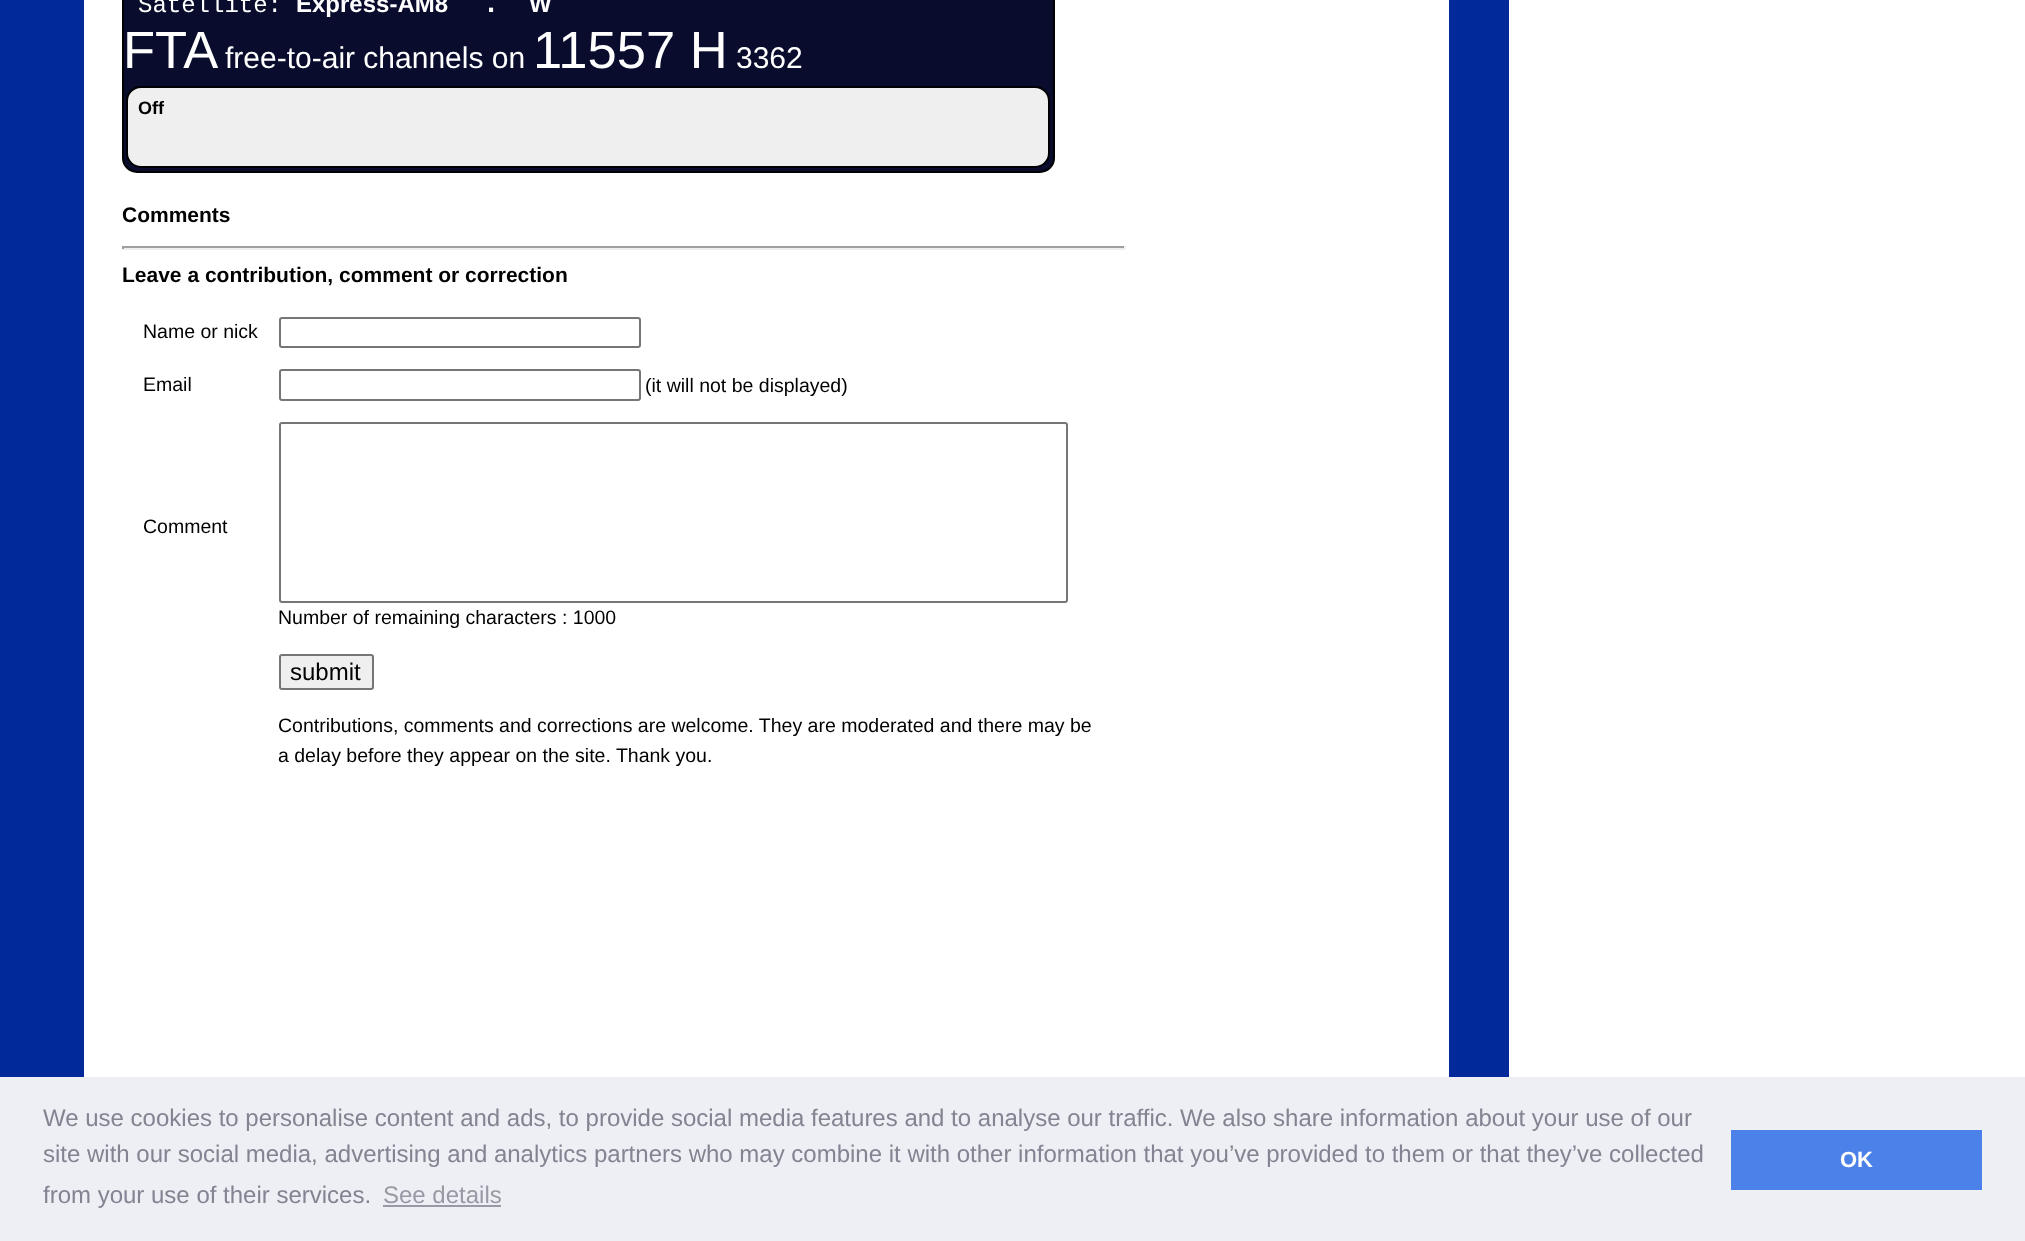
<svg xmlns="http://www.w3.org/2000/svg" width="2025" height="1241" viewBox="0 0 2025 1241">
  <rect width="100%" height="100%" fill="rgb(255,255,255)"/>
  <rect x="0" y="0" width="1509" height="1077" fill="rgb(1,41,154)"/>
  <rect x="84" y="0" width="1365" height="1077" fill="rgb(255,255,255)"/>
  <rect x="123" y="-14" width="931" height="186" rx="14" fill="rgb(9,12,44)" stroke="rgb(0,0,0)" stroke-width="2"/>
  <text x="138" y="12" font-family="Liberation Mono" font-size="24" fill="rgb(255,255,255)">Satellite:</text>
  <text x="296" y="12" font-family="Liberation Sans" font-size="24" font-weight="bold" fill="rgb(255,255,255)">Express-AM8</text>
  <text x="487" y="12" font-family="Liberation Sans" font-size="29" font-weight="bold" fill="rgb(255,255,255)">.</text>
  <text x="529" y="12" font-family="Liberation Sans" font-size="24" font-weight="bold" fill="rgb(255,255,255)">W</text>
  <text x="123" y="68" font-family="Liberation Sans" font-size="52.5" fill="rgb(255,255,255)">FTA</text>
  <text x="225" y="68" font-family="Liberation Sans" font-size="30" fill="rgb(255,255,255)">free-to-air channels on</text>
  <text x="533" y="68" font-family="Liberation Sans" font-size="52.5" fill="rgb(255,255,255)">11557 H</text>
  <text x="736" y="68" font-family="Liberation Sans" font-size="30" fill="rgb(255,255,255)">3362</text>
  <rect x="127" y="87" width="922" height="80" rx="14" fill="rgb(239,239,239)" stroke="rgb(0,0,0)" stroke-width="2"/>
  <text x="138" y="114" font-family="Liberation Sans" font-size="18" font-weight="bold" fill="rgb(0,0,0)">Off</text>
  <text x="122" y="222" font-family="Liberation Sans" font-size="21" font-weight="bold" fill="rgb(0,0,0)">Comments</text>
  <rect x="122" y="246" width="1003" height="2" fill="rgb(159,159,159)"/>
  <rect x="1124" y="246" width="2" height="3" fill="rgb(238,238,238)"/>
  <rect x="122" y="248" width="1003" height="2" fill="rgb(238,238,238)"/>
  <rect x="122" y="246" width="2" height="3" fill="rgb(159,159,159)"/>
  <text x="122" y="282" font-family="Liberation Sans" font-size="21" font-weight="bold" fill="rgb(0,0,0)">Leave a contribution, comment or correction</text>
  <text x="143" y="338" font-family="Liberation Sans" font-size="19.5" fill="rgb(0,0,0)">Name or nick</text>
  <rect x="280" y="318" width="360" height="29" rx="2" fill="none" stroke="rgb(118,118,118)" stroke-width="2"/>
  <text x="143" y="391" font-family="Liberation Sans" font-size="19.5" fill="rgb(0,0,0)">Email</text>
  <rect x="280" y="370" width="360" height="30" rx="2" fill="none" stroke="rgb(118,118,118)" stroke-width="2"/>
  <g font-family="Liberation Sans" font-size="19.5" fill="rgb(0,0,0)">
    <text x="645" y="392">(it will not be displayed)</text>
    <text x="143" y="533">Comment</text>
  </g>
  <rect x="280" y="423" width="787" height="179" rx="2" fill="none" stroke="rgb(118,118,118)" stroke-width="2"/>
  <text x="278" y="624" font-family="Liberation Sans" font-size="19.5" fill="rgb(0,0,0)">Number of remaining characters : 1000</text>
  <rect x="280" y="655" width="93" height="34" rx="2" fill="rgb(239,239,239)" stroke="rgb(118,118,118)" stroke-width="2"/>
  <text x="290" y="680" font-family="Liberation Sans" font-size="24" fill="rgb(0,0,0)">submit</text>
  <g font-family="Liberation Sans" font-size="19.5" fill="rgb(0,0,0)">
    <text>
      <tspan x="278" y="732">Contributions, comments and corrections are welcome. They are moderated and there may be</tspan>
      <tspan x="278" y="762">a delay before they appear on the site. Thank you.</tspan>
    </text>
  </g>
  <rect x="0" y="1077" width="2025" height="164" fill="rgb(237,239,245)"/>
  <g font-family="Liberation Sans" font-size="24" fill="rgb(131,131,145)">
    <text>
      <tspan x="43" y="1126">We use cookies to personalise content and ads, to provide social media features and to analyse our traffic. We also share information about your use of our</tspan>
      <tspan x="43" y="1162">site with our social media, advertising and analytics partners who may combine it with other information that you’ve provided to them or that they’ve collected</tspan>
      <tspan x="43" y="1203">from your use of their services.</tspan>
    </text>
  </g>
  <text x="383" y="1203" font-family="Liberation Sans" font-size="24" fill="rgb(152,153,165)">See details</text>
  <rect x="383" y="1205" width="118" height="2" fill="rgb(152,153,165)"/>
  <rect x="1731" y="1130" width="251" height="60" fill="rgb(75,129,232)"/>
  <text x="1840" y="1167" font-family="Liberation Sans" font-size="22" font-weight="bold" fill="rgb(255,255,255)">OK</text>
</svg>
